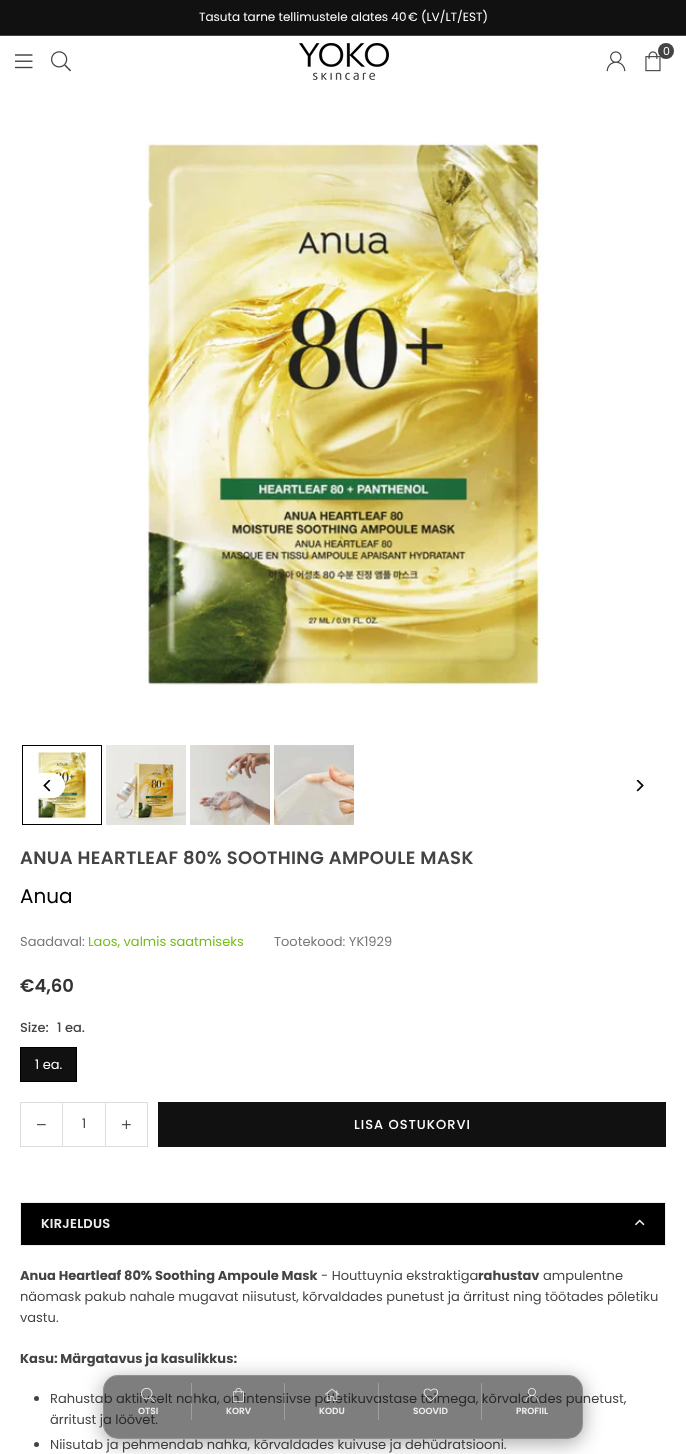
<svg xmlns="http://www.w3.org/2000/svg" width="686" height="1454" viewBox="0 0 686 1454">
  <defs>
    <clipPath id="clip1"><path d="M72 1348H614V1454H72ZM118 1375H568C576.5 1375 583 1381.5 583 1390V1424C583 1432.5 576.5 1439 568 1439H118C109.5 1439 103 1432.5 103 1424V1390C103 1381.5 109.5 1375 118 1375Z" clip-rule="evenodd"/></clipPath>
  </defs>
  <rect width="100%" height="100%" fill="rgb(255,255,255)"/>
  <rect x="0" y="0" width="686" height="35" fill="rgb(17,17,17)"/>
  <rect x="0" y="35" width="686" height="1" fill="rgb(68,68,68)"/>
  <text x="199" y="21" font-family="Poppins" font-size="12" fill="rgb(255,255,255)">Tasuta tarne tellimustele alates 40 € (LV/LT/EST)</text>
  <image x="15" y="54" width="18" height="15" href="pic1.png"/>
  <image x="51" y="51" width="20" height="21" href="pic2.png"/>
  <image x="299" y="43" width="90" height="37" href="pic3.png"/>
  <image x="606" y="51" width="20" height="21" href="pic4.png"/>
  <image x="645" y="51" width="16" height="21" href="pic5.png"/>
  <circle cx="666" cy="51" r="8" fill="rgb(68,68,68)"/>
  <text x="663" y="55" font-family="Poppins" font-size="11" fill="rgb(255,255,255)">0</text>
  <image x="145" y="142" width="400" height="544" href="pic6.png"/>
  <rect x="22.5" y="745.5" width="79" height="79" fill="none" stroke="rgb(0,0,0)"/>
  <image x="36" y="751" width="52" height="68" href="pic7.png"/>
  <image x="106" y="745" width="80" height="80" href="pic8.png"/>
  <image x="190" y="745" width="80" height="80" href="pic9.png"/>
  <image x="274" y="745" width="80" height="80" href="pic10.png"/>
  <rect x="30" y="773" width="35" height="25" rx="12.5" fill="rgb(255,255,255)"/>
  <image x="43" y="780" width="8" height="12" href="pic11.png"/>
  <image x="636" y="780" width="8" height="12" href="pic12.png"/>
  <text x="20" y="864" font-family="Poppins" font-size="18" font-weight="600" letter-spacing="0.35" fill="rgb(68,68,68)">ANUA HEARTLEAF 80% SOOTHING AMPOULE MASK</text>
  <text x="20" y="903" font-family="Poppins" font-size="20" fill="rgb(0,0,0)">Anua</text>
  <text x="20" y="946" font-family="Poppins" font-size="13" fill="rgb(119,119,119)">Saadaval:</text>
  <text x="88" y="946" font-family="Poppins" font-size="13" fill="rgb(118,189,28)">Laos, valmis saatmiseks</text>
  <text x="274" y="946" font-family="Poppins" font-size="13" fill="rgb(119,119,119)">Tootekood: YK1929</text>
  <text x="20" y="992" font-family="Poppins" font-size="18" font-weight="600" fill="rgb(51,51,51)">€4,60</text>
  <g font-family="Poppins" font-size="13" font-weight="500" fill="rgb(68,68,68)">
    <text x="20" y="1032">Size:</text>
    <text x="57" y="1032">1 ea.</text>
  </g>
  <rect x="20.5" y="1047.5" width="56" height="34" fill="rgb(17,17,17)" stroke="rgb(0,0,0)"/>
  <text x="35" y="1069" font-family="Poppins" font-size="13" fill="rgb(255,255,255)">1 ea.</text>
  <rect x="20.5" y="1102.5" width="127" height="44" fill="none" stroke="rgb(221,221,221)"/>
  <rect x="62" y="1103" width="1" height="43" fill="rgb(221,221,221)"/>
  <image x="37" y="1124" width="9" height="2" href="pic13.png"/>
  <text x="82" y="1128" font-family="Poppins" font-size="13" fill="rgb(68,68,68)">1</text>
  <rect x="105" y="1103" width="1" height="43" fill="rgb(221,221,221)"/>
  <image x="122" y="1120" width="9" height="9" href="pic14.png"/>
  <rect x="158" y="1102" width="508" height="45" fill="rgb(17,17,17)"/>
  <text x="354" y="1129" font-family="Poppins" font-size="13" font-weight="500" letter-spacing="1" fill="rgb(255,255,255)">LISA OSTUKORVI</text>
  <rect x="20.5" y="1202.5" width="645" height="43" fill="rgb(0,0,0)" stroke="rgb(238,238,238)"/>
  <text x="41" y="1228" font-family="Poppins" font-size="13" font-weight="600" letter-spacing="0.25" fill="rgb(238,238,238)">KIRJELDUS</text>
  <image x="635" y="1219" width="10" height="7" href="pic15.png"/>
  <text x="20" y="1280" font-family="Poppins" font-size="13" font-weight="bold" fill="rgb(68,68,68)">Anua Heartleaf 80% Soothing Ampoule Mask</text>
  <text x="321" y="1280" font-family="Poppins" font-size="13" fill="rgb(68,68,68)">- Houttuynia ekstraktiga</text>
  <text x="478" y="1280" font-family="Poppins" font-size="13" font-weight="bold" fill="rgb(68,68,68)">rahustav</text>
  <g font-family="Poppins" font-size="13" fill="rgb(68,68,68)">
    <text x="543" y="1280">ampulentne</text>
    <text>
      <tspan x="20" y="1301">näomask pakub nahale mugavat niisutust, kõrvaldades punetust ja ärritust ning töötades põletiku</tspan>
      <tspan x="20" y="1322">vastu.</tspan>
    </text>
  </g>
  <text x="20" y="1363" font-family="Poppins" font-size="13" font-weight="bold" fill="rgb(68,68,68)">Kasu: Märgatavus ja kasulikkus:</text>
  <circle cx="36.5" cy="1398.5" r="2.5" fill="rgb(68,68,68)"/>
  <g font-family="Poppins" font-size="13" fill="rgb(68,68,68)">
    <text>
      <tspan x="50" y="1403">Rahustab aktiivselt nahka, on intensiivse põletikuvastase toimega, kõrvaldades punetust,</tspan>
      <tspan x="50" y="1424">ärritust ja löövet.</tspan>
    </text>
  </g>
  <circle cx="36.5" cy="1444.5" r="2.5" fill="rgb(68,68,68)"/>
  <text x="50" y="1449" font-family="Poppins" font-size="13" fill="rgb(68,68,68)">Niisutab ja pehmendab nahka, kõrvaldades kuivuse ja dehüdratsiooni.</text>
  <g clip-path="url(#clip1)">
    <rect x="103" y="1379" width="480" height="64" rx="15" fill="rgba(0,0,0,0.35)" filter="blur(10px)"/>
  </g>
  <rect x="103" y="1375" width="480" height="64" rx="15" fill="rgba(20,20,20,0.55)"/>
  <rect x="103.5" y="1375.5" width="479" height="63" rx="14.5" fill="none" stroke="rgba(255,255,255,0.15)"/>
  <image x="141" y="1387" width="14" height="15" href="pic16.png"/>
  <text x="138" y="1414" font-family="Poppins" font-size="9" font-weight="600" fill="rgb(238,238,238)">OTSI</text>
  <rect x="191" y="1383" width="1" height="37" fill="rgba(255,255,255,0.25)"/>
  <image x="233" y="1388" width="11" height="14" href="pic17.png"/>
  <text x="226" y="1414" font-family="Poppins" font-size="9" font-weight="600" fill="rgb(238,238,238)">KORV</text>
  <rect x="284" y="1383" width="1" height="37" fill="rgba(255,255,255,0.25)"/>
  <image x="325" y="1388" width="14" height="13" href="pic18.png"/>
  <text x="319" y="1414" font-family="Poppins" font-size="9" font-weight="600" fill="rgb(238,238,238)">KODU</text>
  <rect x="378" y="1383" width="1" height="37" fill="rgba(255,255,255,0.25)"/>
  <image x="423" y="1388" width="16" height="14" href="pic19.png"/>
  <text x="413" y="1414" font-family="Poppins" font-size="9" font-weight="600" fill="rgb(238,238,238)">SOOVID</text>
  <rect x="481" y="1383" width="1" height="37" fill="rgb(158,158,158)"/>
  <image x="525" y="1388" width="14" height="14" href="pic20.png"/>
  <text x="516" y="1414" font-family="Poppins" font-size="9" font-weight="600" fill="rgb(238,238,238)">PROFIIL</text>
</svg>
